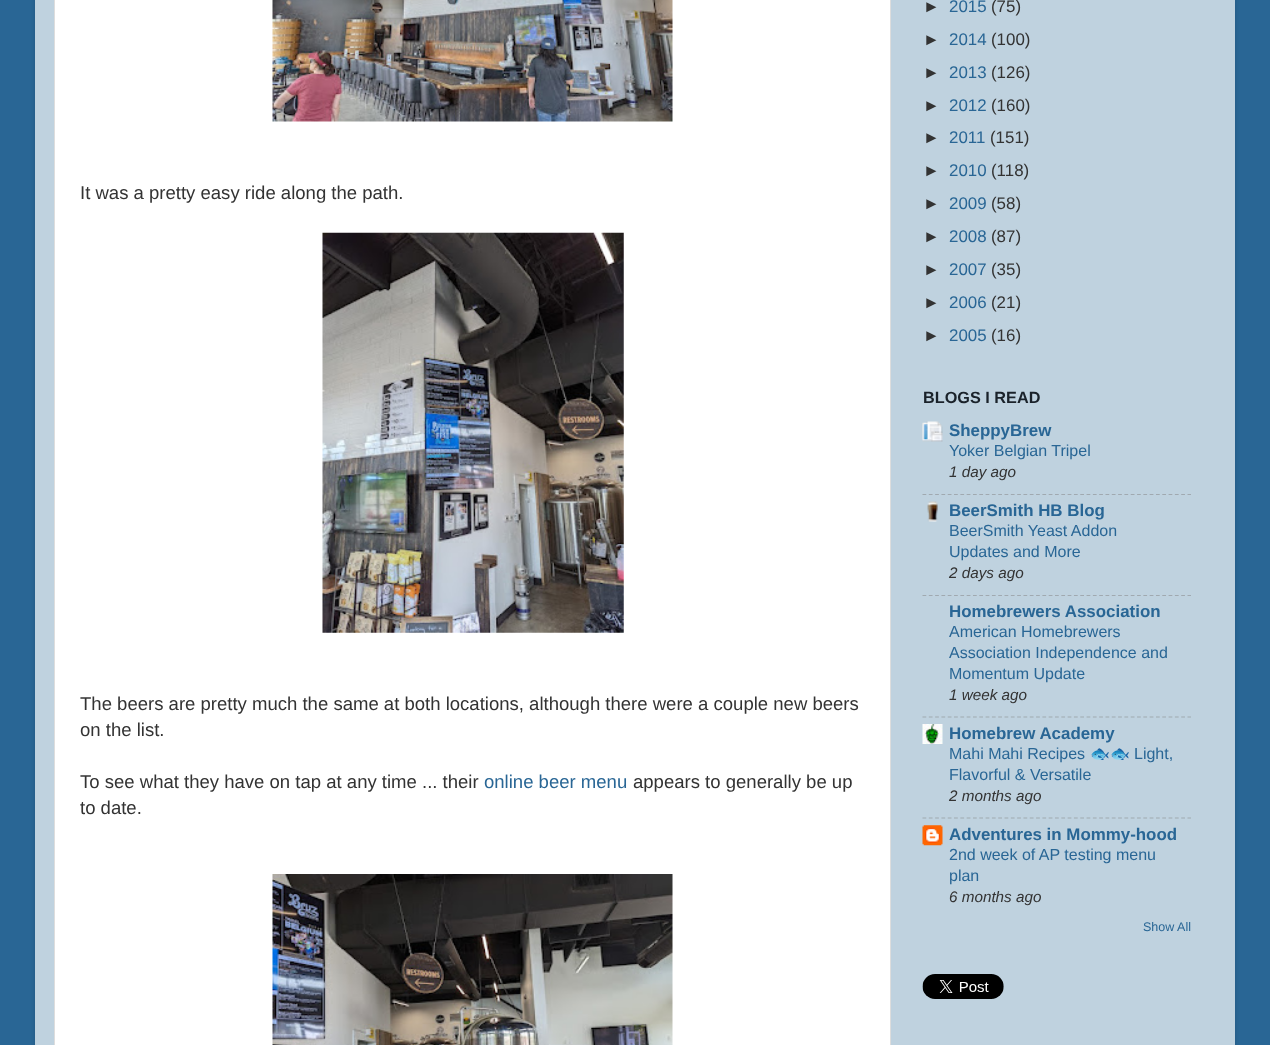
<svg xmlns="http://www.w3.org/2000/svg" width="1270" height="1045" viewBox="0 0 1270 1045">
  <rect width="100%" height="100%" fill="rgb(41,102,149)"/>
  <rect x="35" y="-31" width="1200" height="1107" rx="25" fill="rgba(0,0,0,0.15)" filter="blur(2px)"/>
  <rect x="35" y="0" width="1200" height="1045" fill="rgb(191,210,223)"/>
  <rect x="54.5" y="-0.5" width="836" height="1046" fill="rgb(255,255,255)" stroke="rgb(221,221,221)"/>
  <image x="272" y="0" width="401" height="122" href="pic1.png"/>
  <text x="80" y="199" font-family="Liberation Sans" font-size="18.55" fill="rgb(51,51,51)">It was a pretty easy ride along the path.</text>
  <image x="322" y="232" width="302" height="401" href="pic2.png"/>
  <g font-family="Liberation Sans" font-size="18.55" fill="rgb(51,51,51)">
    <text>
      <tspan x="80" y="710">The beers are pretty much the same at both locations, although there were a couple new beers</tspan>
      <tspan x="80" y="736">on the list.</tspan>
    </text>
    <text x="80" y="788">To see what they have on tap at any time ... their</text>
  </g>
  <text x="484" y="788" font-family="Liberation Sans" font-size="18.55" fill="rgb(41,102,149)">online beer menu</text>
  <g font-family="Liberation Sans" font-size="18.55" fill="rgb(51,51,51)">
    <text x="633" y="788">appears to generally be up</text>
    <text x="80" y="814">to date.</text>
  </g>
  <image x="272" y="874" width="401" height="171" href="pic3.png"/>
  <text x="923" y="12" font-family="Liberation Sans" font-size="16.9" fill="rgb(51,51,51)">►</text>
  <text x="949" y="12" font-family="Liberation Sans" font-size="16.9" fill="rgb(41,102,149)">2015</text>
  <g font-family="Liberation Sans" font-size="16.9" fill="rgb(51,51,51)">
    <text x="991" y="12">(75)</text>
    <text x="923" y="45">►</text>
  </g>
  <text x="949" y="45" font-family="Liberation Sans" font-size="16.9" fill="rgb(41,102,149)">2014</text>
  <g font-family="Liberation Sans" font-size="16.9" fill="rgb(51,51,51)">
    <text x="991" y="45">(100)</text>
    <text x="923" y="78">►</text>
  </g>
  <text x="949" y="78" font-family="Liberation Sans" font-size="16.9" fill="rgb(41,102,149)">2013</text>
  <g font-family="Liberation Sans" font-size="16.9" fill="rgb(51,51,51)">
    <text x="991" y="78">(126)</text>
    <text x="923" y="111">►</text>
  </g>
  <text x="949" y="111" font-family="Liberation Sans" font-size="16.9" fill="rgb(41,102,149)">2012</text>
  <g font-family="Liberation Sans" font-size="16.9" fill="rgb(51,51,51)">
    <text x="991" y="111">(160)</text>
    <text x="923" y="143">►</text>
  </g>
  <text x="949" y="143" font-family="Liberation Sans" font-size="16.9" fill="rgb(41,102,149)">2011</text>
  <g font-family="Liberation Sans" font-size="16.9" fill="rgb(51,51,51)">
    <text x="990" y="143">(151)</text>
    <text x="923" y="176">►</text>
  </g>
  <text x="949" y="176" font-family="Liberation Sans" font-size="16.9" fill="rgb(41,102,149)">2010</text>
  <g font-family="Liberation Sans" font-size="16.9" fill="rgb(51,51,51)">
    <text x="991" y="176">(118)</text>
    <text x="923" y="209">►</text>
  </g>
  <text x="949" y="209" font-family="Liberation Sans" font-size="16.9" fill="rgb(41,102,149)">2009</text>
  <g font-family="Liberation Sans" font-size="16.9" fill="rgb(51,51,51)">
    <text x="991" y="209">(58)</text>
    <text x="923" y="242">►</text>
  </g>
  <text x="949" y="242" font-family="Liberation Sans" font-size="16.9" fill="rgb(41,102,149)">2008</text>
  <g font-family="Liberation Sans" font-size="16.9" fill="rgb(51,51,51)">
    <text x="991" y="242">(87)</text>
    <text x="923" y="275">►</text>
  </g>
  <text x="949" y="275" font-family="Liberation Sans" font-size="16.9" fill="rgb(41,102,149)">2007</text>
  <g font-family="Liberation Sans" font-size="16.9" fill="rgb(51,51,51)">
    <text x="991" y="275">(35)</text>
    <text x="923" y="308">►</text>
  </g>
  <text x="949" y="308" font-family="Liberation Sans" font-size="16.9" fill="rgb(41,102,149)">2006</text>
  <g font-family="Liberation Sans" font-size="16.9" fill="rgb(51,51,51)">
    <text x="991" y="308">(21)</text>
    <text x="923" y="341">►</text>
  </g>
  <text x="949" y="341" font-family="Liberation Sans" font-size="16.9" fill="rgb(41,102,149)">2005</text>
  <text x="991" y="341" font-family="Liberation Sans" font-size="16.9" fill="rgb(51,51,51)">(16)</text>
  <text x="923" y="403" font-family="Liberation Sans" font-size="16.25" font-weight="bold" fill="rgb(26,34,42)">BLOGS I READ</text>
  <image x="922" y="421" width="21" height="21" href="pic4.png"/>
  <text x="949" y="436" font-family="Liberation Sans" font-size="16.9" font-weight="bold" fill="rgb(41,102,149)">SheppyBrew</text>
  <text x="949" y="456" font-family="Liberation Sans" font-size="16" fill="rgb(41,102,149)">Yoker Belgian Tripel</text>
  <text x="949" y="477" font-family="Liberation Sans" font-size="15.25" font-style="italic" fill="rgb(51,51,51)">1 day ago</text>
  <path d="M922.5 494.5H1191" fill="none" stroke="rgb(160,169,176)" stroke-width="1.2" stroke-dasharray="3.75 2.56"/>
  <image x="927" y="501" width="11" height="21" href="pic5.png"/>
  <text x="949" y="516" font-family="Liberation Sans" font-size="16.9" font-weight="bold" fill="rgb(41,102,149)">BeerSmith HB Blog</text>
  <g font-family="Liberation Sans" font-size="16" fill="rgb(41,102,149)">
    <text>
      <tspan x="949" y="536">BeerSmith Yeast Addon</tspan>
      <tspan x="949" y="557">Updates and More</tspan>
    </text>
  </g>
  <text x="949" y="578" font-family="Liberation Sans" font-size="15.25" font-style="italic" fill="rgb(51,51,51)">2 days ago</text>
  <path d="M922.5 595.5H1191" fill="none" stroke="rgb(160,169,176)" stroke-width="1.2" stroke-dasharray="3.75 2.56"/>
  <text x="949" y="617" font-family="Liberation Sans" font-size="16.9" font-weight="bold" fill="rgb(41,102,149)">Homebrewers Association</text>
  <g font-family="Liberation Sans" font-size="16" fill="rgb(41,102,149)">
    <text>
      <tspan x="949" y="637">American Homebrewers</tspan>
      <tspan x="949" y="658">Association Independence and</tspan>
      <tspan x="949" y="679">Momentum Update</tspan>
    </text>
  </g>
  <text x="949" y="700" font-family="Liberation Sans" font-size="15.25" font-style="italic" fill="rgb(51,51,51)">1 week ago</text>
  <path d="M922.5 717H1191" fill="none" stroke="rgb(160,169,176)" stroke-width="1.2" stroke-dasharray="3.75 2.56"/>
  <image x="922" y="724" width="21" height="20" href="pic6.png"/>
  <text x="949" y="739" font-family="Liberation Sans" font-size="16.9" font-weight="bold" fill="rgb(41,102,149)">Homebrew Academy</text>
  <text x="949" y="759" font-family="Liberation Sans" font-size="16" fill="rgb(41,102,149)">Mahi Mahi Recipes</text>
  <text x="1090" y="759" font-family="Noto Color Emoji" font-size="16" fill="rgb(41,102,149)">🐟🐟</text>
  <g font-family="Liberation Sans" font-size="16" fill="rgb(41,102,149)">
    <text x="1134" y="759">Light,</text>
    <text x="949" y="780">Flavorful &amp; Versatile</text>
  </g>
  <text x="949" y="801" font-family="Liberation Sans" font-size="15.25" font-style="italic" fill="rgb(51,51,51)">2 months ago</text>
  <path d="M922.5 818H1191" fill="none" stroke="rgb(160,169,176)" stroke-width="1.2" stroke-dasharray="3.75 2.56"/>
  <image x="922" y="825" width="21" height="21" href="pic7.png"/>
  <text x="949" y="840" font-family="Liberation Sans" font-size="16.9" font-weight="bold" fill="rgb(41,102,149)">Adventures in Mommy-hood</text>
  <g font-family="Liberation Sans" font-size="16" fill="rgb(41,102,149)">
    <text>
      <tspan x="949" y="860">2nd week of AP testing menu</tspan>
      <tspan x="949" y="881">plan</tspan>
    </text>
  </g>
  <text x="949" y="902" font-family="Liberation Sans" font-size="15.25" font-style="italic" fill="rgb(51,51,51)">6 months ago</text>
  <text x="1143" y="931" font-family="Liberation Sans" font-size="12.5" fill="rgb(41,102,149)">Show All</text>
  <image x="922" y="974" width="82" height="25" href="pic8.png"/>
</svg>
